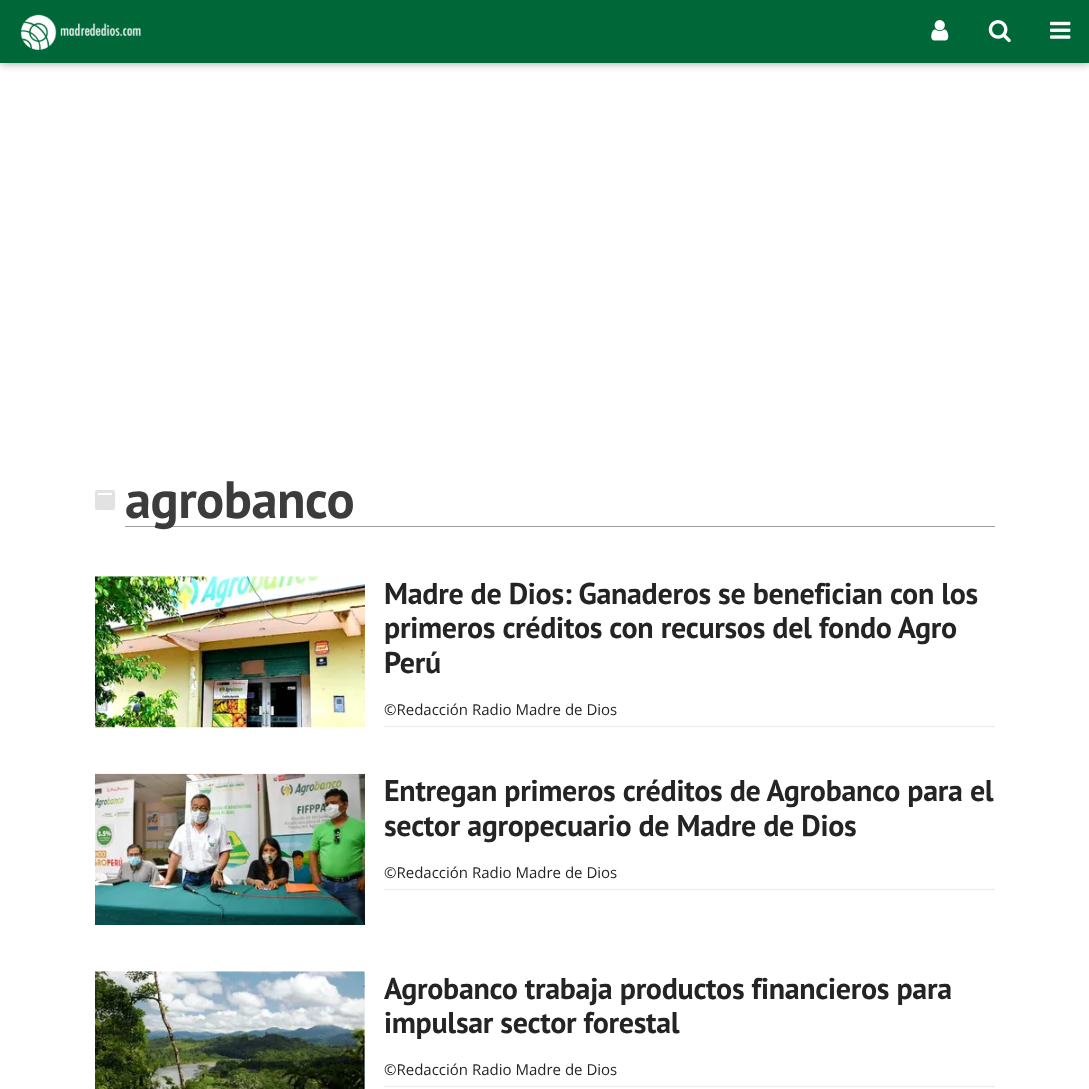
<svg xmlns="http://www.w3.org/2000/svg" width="1089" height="1089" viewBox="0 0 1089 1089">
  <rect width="100%" height="100%" fill="rgb(255,255,255)"/>
  <rect x="0" y="0" width="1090" height="63" fill="rgba(0,0,0,0.4)" filter="blur(5px)"/>
  <rect x="0" y="0" width="1089" height="63" fill="rgb(0,104,56)"/>
  <image x="20" y="14" width="121" height="36" href="pic1.png"/>
  <image x="931" y="20" width="18" height="21" href="pic2.png"/>
  <image x="988" y="20" width="23" height="23" href="pic3.png"/>
  <image x="1050" y="21" width="21" height="18" href="pic4.png"/>
  <rect x="96.5" y="491.5" width="17" height="17" rx="1" fill="none" stroke="rgb(226,226,226)" stroke-width="3"/>
  <rect x="98" y="495" width="14" height="12" fill="rgb(226,226,226)"/>
  <rect x="125" y="526" width="870" height="1" fill="rgb(158,158,158)"/>
  <text x="125" y="518" font-family="PT Sans" font-size="52.5" font-weight="bold" letter-spacing="-0.5" fill="rgb(60,60,60)">agrobanco</text>
  <image x="95" y="576" width="270" height="152" href="pic5.png"/>
  <g font-family="PT Sans" font-size="30" font-weight="bold" letter-spacing="-0.3" fill="rgb(36,36,36)">
    <text>
      <tspan x="384" y="604">Madre de Dios: Ganaderos se benefician con los</tspan>
      <tspan x="384" y="638">primeros créditos con recursos del fondo Agro</tspan>
      <tspan x="384" y="673">Perú</tspan>
    </text>
  </g>
  <rect x="384" y="726" width="611" height="1" fill="rgb(234,234,234)"/>
  <text x="384" y="715" font-family="Open Sans" font-size="15" fill="rgb(36,36,36)">©Redacción Radio Madre de Dios</text>
  <image x="95" y="773" width="270" height="152" href="pic6.png"/>
  <g font-family="PT Sans" font-size="30" font-weight="bold" letter-spacing="-0.3" fill="rgb(36,36,36)">
    <text>
      <tspan x="384" y="801">Entregan primeros créditos de Agrobanco para el</tspan>
      <tspan x="384" y="836">sector agropecuario de Madre de Dios</tspan>
    </text>
  </g>
  <rect x="384" y="889" width="611" height="1" fill="rgb(234,234,234)"/>
  <text x="384" y="878" font-family="Open Sans" font-size="15" fill="rgb(36,36,36)">©Redacción Radio Madre de Dios</text>
  <image x="95" y="971" width="270" height="118" href="pic7.png"/>
  <g font-family="PT Sans" font-size="30" font-weight="bold" letter-spacing="-0.3" fill="rgb(36,36,36)">
    <text>
      <tspan x="384" y="999">Agrobanco trabaja productos financieros para</tspan>
      <tspan x="384" y="1033">impulsar sector forestal</tspan>
    </text>
  </g>
  <rect x="384" y="1086" width="611" height="1" fill="rgb(234,234,234)"/>
  <text x="384" y="1075" font-family="Open Sans" font-size="15" fill="rgb(36,36,36)">©Redacción Radio Madre de Dios</text>
</svg>
